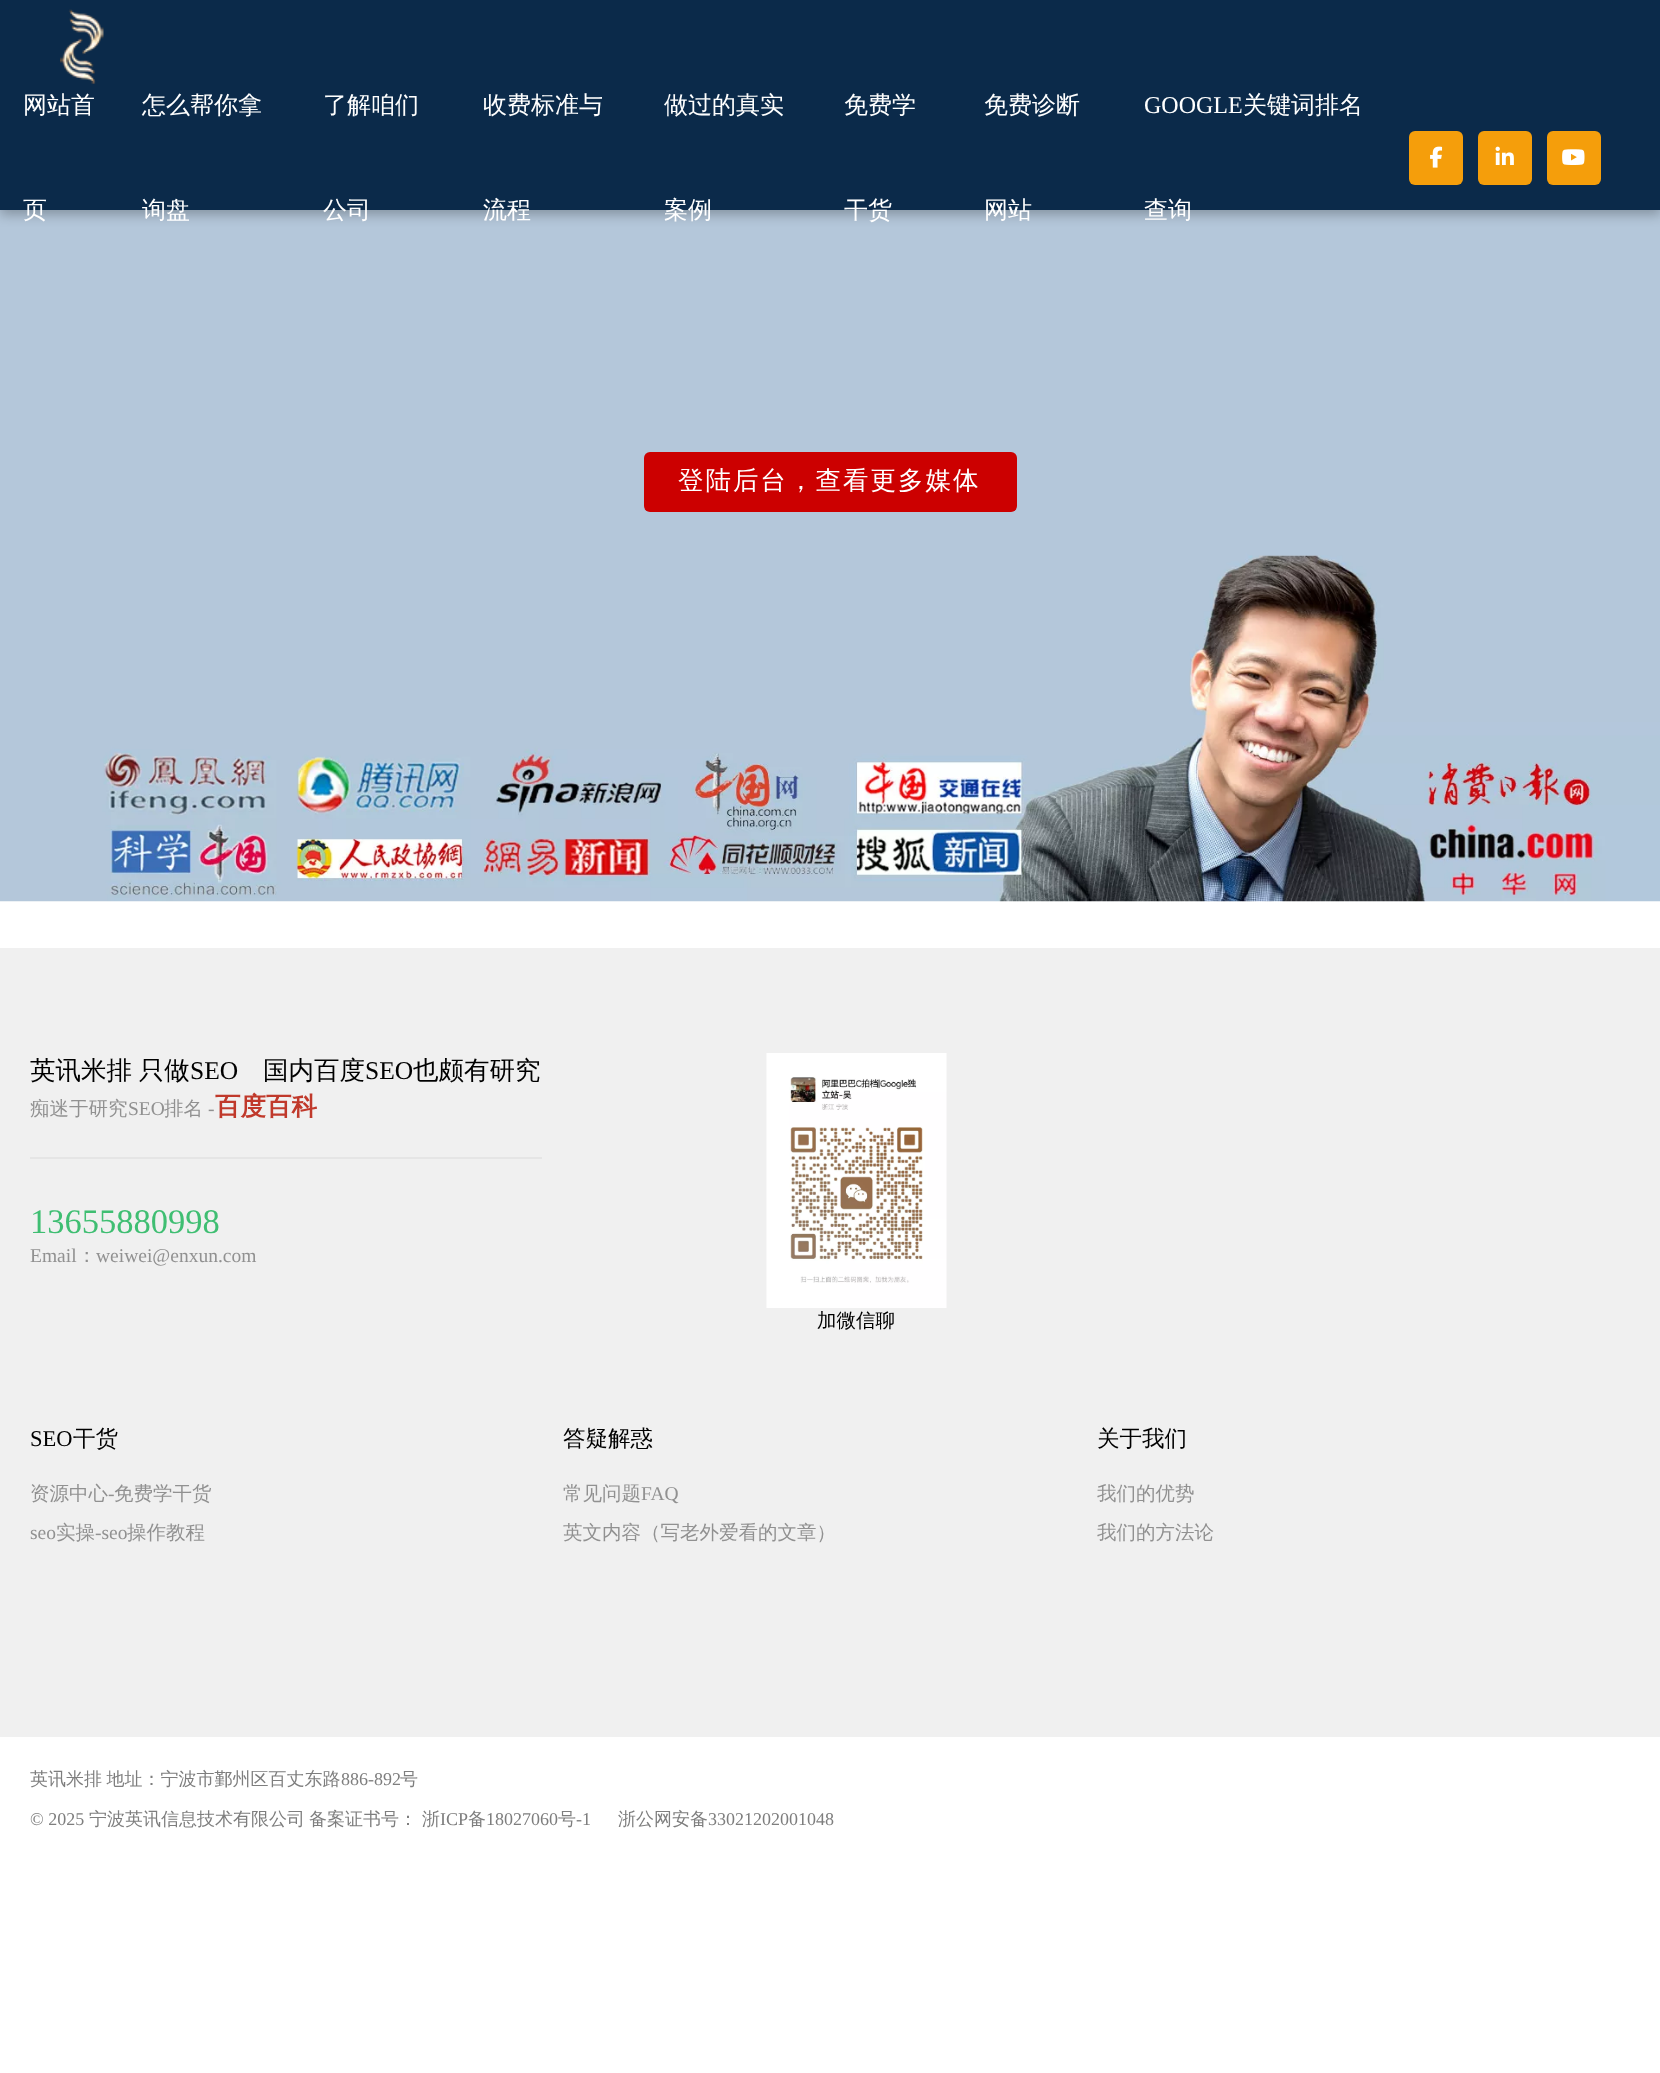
<svg xmlns="http://www.w3.org/2000/svg" width="1660" height="2073" viewBox="0 0 1660 2073">
  <rect width="100%" height="100%" fill="rgb(255,255,255)"/>
  <image x="0" y="210" width="1660" height="692" href="pic5.png"/>
  <rect x="0" y="5" width="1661" height="210" fill="rgba(0,0,0,0.25)" filter="blur(6px)"/>
  <rect x="0" y="0" width="1660" height="210" fill="rgb(11,42,74)"/>
  <image x="60" y="9" width="44" height="75" href="pic1.png"/>
  <g font-family="WenQuanYi Zen Hei" font-size="24" font-weight="500" fill="rgb(255,255,255)">
    <text x="23" y="113">网站首</text>
    <text x="23" y="218">页</text>
    <text x="142" y="113">怎么帮你拿</text>
    <text x="142" y="218">询盘</text>
    <text x="323" y="113">了解咱们</text>
    <text x="323" y="218">公司</text>
    <text x="483" y="113">收费标准与</text>
    <text x="483" y="218">流程</text>
    <text x="664" y="113">做过的真实</text>
    <text x="664" y="218">案例</text>
    <text x="844" y="113">免费学</text>
    <text x="844" y="218">干货</text>
    <text x="984" y="113">免费诊断</text>
    <text x="984" y="218">网站</text>
  </g>
  <text x="1144" y="113" font-family="Liberation Serif" font-size="24" fill="rgb(255,255,255)">GOOGLE</text>
  <g font-family="WenQuanYi Zen Hei" font-size="24" font-weight="500" fill="rgb(255,255,255)">
    <text x="1243" y="113">关键词排名</text>
    <text x="1144" y="218">查询</text>
  </g>
  <rect x="1409" y="131" width="54" height="54" rx="6" fill="rgb(245,158,11)"/>
  <image x="1430" y="146" width="13" height="22" href="pic2.png"/>
  <rect x="1478" y="131" width="54" height="54" rx="6" fill="rgb(245,158,11)"/>
  <image x="1495" y="146" width="19" height="19" href="pic3.png"/>
  <rect x="1547" y="131" width="54" height="54" rx="6" fill="rgb(245,158,11)"/>
  <image x="1562" y="149" width="23" height="16" href="pic4.png"/>
  <rect x="644" y="452" width="373" height="60" rx="6" fill="rgb(204,0,0)"/>
  <text x="678" y="489" font-family="WenQuanYi Zen Hei" font-size="25.5" font-weight="500" letter-spacing="2" fill="rgb(255,255,255)">登陆后台，查看更多媒体</text>
  <rect x="0" y="948" width="1660" height="789" fill="rgb(240,240,240)"/>
  <rect x="30" y="1157" width="512" height="2" fill="rgb(229,229,229)"/>
  <text x="30" y="1079" word-spacing="-1" font-family="WenQuanYi Zen Hei" font-size="25.5" font-weight="500" fill="rgb(0,0,0)">英讯米排 只做</text>
  <text x="190" y="1079" font-family="Liberation Serif" font-size="25.5" fill="rgb(0,0,0)">SEO</text>
  <text x="263" y="1079" font-family="WenQuanYi Zen Hei" font-size="25.5" font-weight="500" fill="rgb(0,0,0)">国内百度</text>
  <text x="365" y="1079" font-family="Liberation Serif" font-size="25.5" fill="rgb(0,0,0)">SEO</text>
  <text x="413" y="1079" font-family="WenQuanYi Zen Hei" font-size="25.5" font-weight="500" fill="rgb(0,0,0)">也颇有研究</text>
  <text x="30" y="1115" font-family="WenQuanYi Zen Hei" font-size="19.5" font-weight="500" fill="rgb(145,145,145)">痴迷于研究</text>
  <text x="128" y="1115" font-family="Liberation Serif" font-size="19.5" fill="rgb(145,145,145)">SEO</text>
  <text x="164" y="1115" font-family="WenQuanYi Zen Hei" font-size="19.5" font-weight="500" fill="rgb(145,145,145)">排名</text>
  <text x="208" y="1115" font-family="Liberation Serif" font-size="19.5" fill="rgb(145,145,145)">-</text>
  <text x="215" y="1115" font-family="WenQuanYi Zen Hei" font-size="25.5" font-weight="bold" fill="rgb(192,57,43)">百度百科</text>
  <text x="30" y="1233" font-family="Liberation Serif" font-size="34.5" fill="rgb(63,190,114)">13655880998</text>
  <text x="30" y="1262" font-family="Liberation Serif" font-size="19.5" fill="rgb(145,145,145)">Email</text>
  <text x="77" y="1262" font-family="WenQuanYi Zen Hei" font-size="19.5" font-weight="500" fill="rgb(145,145,145)">：</text>
  <text x="96" y="1262" font-family="Liberation Serif" font-size="19.5" fill="rgb(145,145,145)">weiwei@enxun.com</text>
  <image x="766" y="1053" width="181" height="255" href="pic6.png"/>
  <text x="817" y="1327" font-family="WenQuanYi Zen Hei" font-size="19.5" font-weight="500" fill="rgb(0,0,0)">加微信聊</text>
  <text x="30" y="1446" font-family="Liberation Serif" font-size="22.5" fill="rgb(0,0,0)">SEO</text>
  <text x="73" y="1446" font-family="WenQuanYi Zen Hei" font-size="22.5" font-weight="500" fill="rgb(0,0,0)">干货</text>
  <text x="30" y="1500" font-family="WenQuanYi Zen Hei" font-size="19.5" font-weight="500" fill="rgb(145,145,145)">资源中心</text>
  <text x="108" y="1500" font-family="Liberation Serif" font-size="19.5" fill="rgb(145,145,145)">-</text>
  <text x="114" y="1500" font-family="WenQuanYi Zen Hei" font-size="19.5" font-weight="500" fill="rgb(145,145,145)">免费学干货</text>
  <text x="30" y="1539" font-family="Liberation Serif" font-size="19.5" fill="rgb(145,145,145)">seo</text>
  <text x="56" y="1539" font-family="WenQuanYi Zen Hei" font-size="19.5" font-weight="500" fill="rgb(145,145,145)">实操</text>
  <text x="95" y="1539" font-family="Liberation Serif" font-size="19.5" fill="rgb(145,145,145)">-seo</text>
  <text x="127" y="1539" font-family="WenQuanYi Zen Hei" font-size="19.5" font-weight="500" fill="rgb(145,145,145)">操作教程</text>
  <text x="563" y="1446" font-family="WenQuanYi Zen Hei" font-size="22.5" font-weight="500" fill="rgb(0,0,0)">答疑解惑</text>
  <text x="563" y="1500" font-family="WenQuanYi Zen Hei" font-size="19.5" font-weight="500" fill="rgb(145,145,145)">常见问题</text>
  <text x="641" y="1500" font-family="Liberation Serif" font-size="19.5" fill="rgb(145,145,145)">FAQ</text>
  <text x="563" y="1539" font-family="WenQuanYi Zen Hei" font-size="19.5" font-weight="500" fill="rgb(145,145,145)">英文内容（写老外爱看的文章）</text>
  <text x="1097" y="1446" font-family="WenQuanYi Zen Hei" font-size="22.5" font-weight="500" fill="rgb(0,0,0)">关于我们</text>
  <g font-family="WenQuanYi Zen Hei" font-size="19.5" font-weight="500" fill="rgb(145,145,145)">
    <text x="1097" y="1500">我们的优势</text>
    <text x="1097" y="1539">我们的方法论</text>
  </g>
  <text x="30" y="1785" word-spacing="-1" font-family="WenQuanYi Zen Hei" font-size="18" font-weight="500" fill="rgb(126,126,126)">英讯米排 地址：宁波市鄞州区百丈东路</text>
  <text x="341" y="1785" font-family="Liberation Serif" font-size="18" fill="rgb(126,126,126)">886-892</text>
  <text x="400" y="1785" font-family="WenQuanYi Zen Hei" font-size="18" font-weight="500" fill="rgb(126,126,126)">号</text>
  <text x="30" y="1825" font-family="Liberation Serif" font-size="18" fill="rgb(126,126,126)">© 2025</text>
  <g font-family="WenQuanYi Zen Hei" font-size="18" font-weight="500" fill="rgb(126,126,126)">
    <text x="89" y="1825">宁波英讯信息技术有限公司</text>
    <text x="309" y="1825">备案证书号：</text>
    <text x="422" y="1825">浙</text>
  </g>
  <text x="440" y="1825" font-family="Liberation Serif" font-size="18" fill="rgb(126,126,126)">ICP</text>
  <text x="468" y="1825" font-family="WenQuanYi Zen Hei" font-size="18" font-weight="500" fill="rgb(126,126,126)">备</text>
  <text x="486" y="1825" font-family="Liberation Serif" font-size="18" fill="rgb(126,126,126)">18027060</text>
  <text x="558" y="1825" font-family="WenQuanYi Zen Hei" font-size="18" font-weight="500" fill="rgb(126,126,126)">号</text>
  <text x="576" y="1825" font-family="Liberation Serif" font-size="18" fill="rgb(126,126,126)">-1</text>
  <text x="618" y="1825" font-family="WenQuanYi Zen Hei" font-size="18" font-weight="500" fill="rgb(126,126,126)">浙公网安备</text>
  <text x="708" y="1825" font-family="Liberation Serif" font-size="18" fill="rgb(126,126,126)">33021202001048</text>
</svg>
